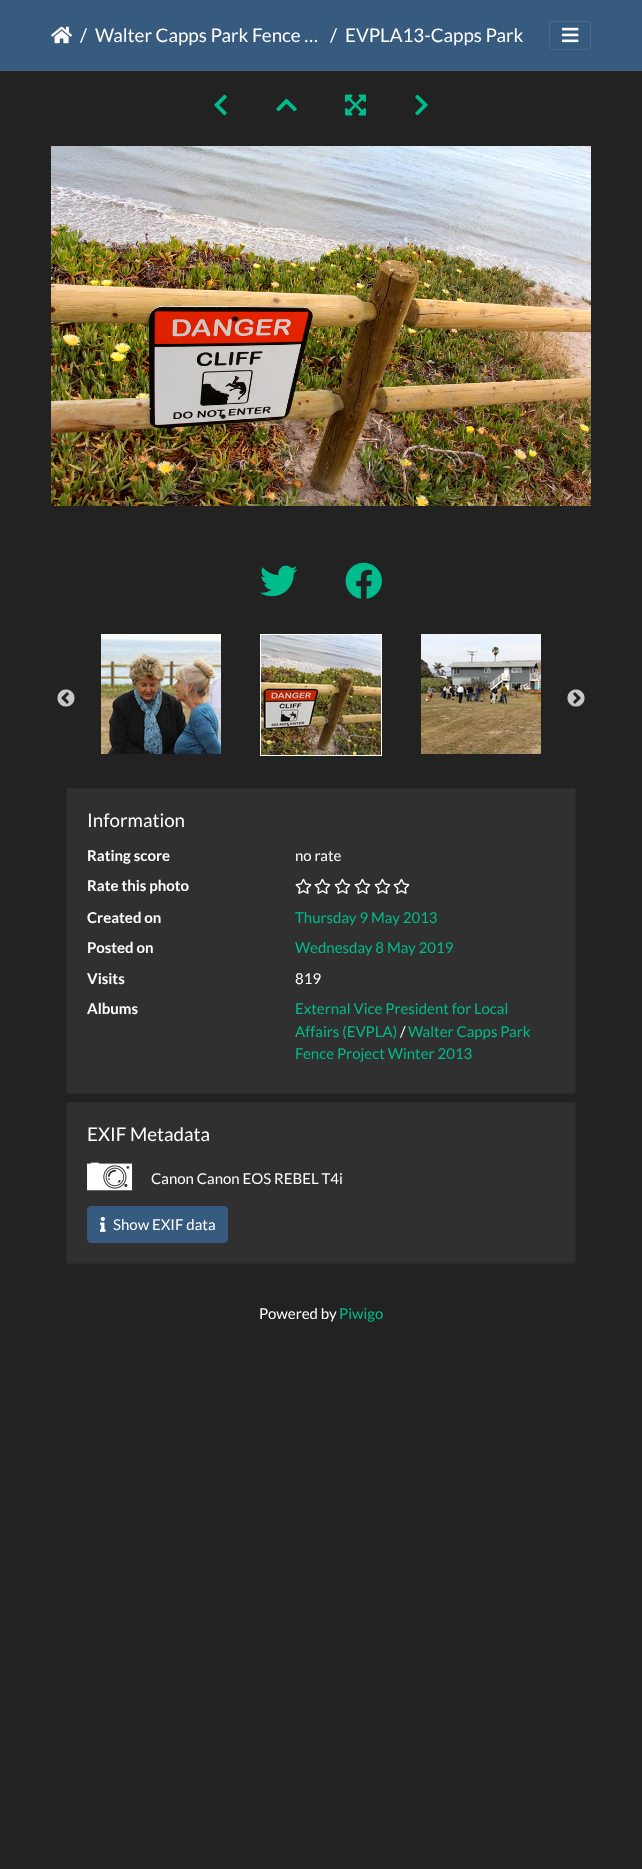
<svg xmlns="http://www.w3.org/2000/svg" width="642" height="1869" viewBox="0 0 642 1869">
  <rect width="100%" height="100%" fill="rgb(34,34,34)"/>
  <rect x="0" y="0" width="642" height="71" fill="rgb(55,90,127)"/>
  <image x="51" y="26" width="21" height="18" href="pic1.png"/>
  <g font-family="Lato" font-size="18.75" fill="rgb(255,255,255)">
    <text x="80" y="42">/</text>
    <text x="95" y="42">Walter Capps Park Fence …</text>
    <text x="330" y="42">/</text>
    <text x="345" y="42">EVPLA13-Capps Park</text>
  </g>
  <rect x="549.5" y="21.5" width="41" height="28" rx="3.5" fill="none" stroke="rgb(75,107,140)"/>
  <image x="562" y="27" width="17" height="16" href="pic2.png"/>
  <image x="214" y="94" width="13" height="22" href="pic3.png"/>
  <image x="276" y="98" width="21" height="14" href="pic4.png"/>
  <image x="345" y="94" width="21" height="22" href="pic5.png"/>
  <image x="415" y="94" width="13" height="22" href="pic6.png"/>
  <image x="51" y="146" width="540" height="360" href="pic7.png"/>
  <image x="260" y="565" width="38" height="32" href="pic8.png"/>
  <image x="345" y="562" width="37" height="37" href="pic9.png"/>
  <image x="57" y="689" width="18" height="18" href="pic10.png"/>
  <image x="101" y="634" width="120" height="120" href="pic11.png"/>
  <rect x="260.5" y="634.5" width="121" height="121" fill="none" stroke="rgb(255,255,255)"/>
  <image x="261" y="635" width="120" height="120" href="pic12.png"/>
  <image x="421" y="634" width="120" height="120" href="pic13.png"/>
  <image x="567" y="689" width="18" height="18" href="pic14.png"/>
  <rect x="66.5" y="788.5" width="509" height="305" rx="1.5" fill="rgb(48,48,48)" stroke="rgb(42,42,42)"/>
  <text x="87" y="827" font-family="Lato" font-size="18.75" fill="rgb(255,255,255)">Information</text>
  <text x="87" y="861" font-family="Lato" font-size="15" font-weight="bold" fill="rgb(255,255,255)">Rating score</text>
  <text x="295" y="861" font-family="Lato" font-size="15" fill="rgb(255,255,255)">no rate</text>
  <text x="87" y="891" font-family="Lato" font-size="15" font-weight="bold" fill="rgb(255,255,255)">Rate this photo</text>
  <image x="295" y="878" width="17" height="16" href="pic15.png"/>
  <image x="314" y="878" width="17" height="16" href="pic15.png"/>
  <image x="334" y="878" width="17" height="16" href="pic15.png"/>
  <image x="354" y="878" width="17" height="16" href="pic15.png"/>
  <image x="374" y="878" width="17" height="16" href="pic15.png"/>
  <image x="393" y="878" width="17" height="16" href="pic15.png"/>
  <text x="87" y="923" font-family="Lato" font-size="15" font-weight="bold" fill="rgb(255,255,255)">Created on</text>
  <text x="295" y="923" font-family="Lato" font-size="15" fill="rgb(0,188,140)">Thursday 9 May 2013</text>
  <text x="87" y="953" font-family="Lato" font-size="15" font-weight="bold" fill="rgb(255,255,255)">Posted on</text>
  <text x="295" y="953" font-family="Lato" font-size="15" fill="rgb(0,188,140)">Wednesday 8 May 2019</text>
  <text x="87" y="984" font-family="Lato" font-size="15" font-weight="bold" fill="rgb(255,255,255)">Visits</text>
  <text x="295" y="984" font-family="Lato" font-size="15" fill="rgb(255,255,255)">819</text>
  <text x="87" y="1014" font-family="Lato" font-size="15" font-weight="bold" fill="rgb(255,255,255)">Albums</text>
  <g font-family="Lato" font-size="15" fill="rgb(0,188,140)">
    <text>
      <tspan x="295" y="1014">External Vice President for Local</tspan>
      <tspan x="295" y="1037">Affairs (EVPLA)</tspan>
    </text>
  </g>
  <text x="400" y="1037" font-family="Lato" font-size="15" fill="rgb(255,255,255)">/</text>
  <g font-family="Lato" font-size="15" fill="rgb(0,188,140)">
    <text x="408" y="1037">Walter Capps Park</text>
    <text x="295" y="1059">Fence Project Winter 2013</text>
  </g>
  <rect x="66.5" y="1102.5" width="509" height="161" rx="1.5" fill="rgb(48,48,48)" stroke="rgb(42,42,42)"/>
  <text x="87" y="1141" font-family="Lato" font-size="18.75" fill="rgb(255,255,255)">EXIF Metadata</text>
  <image x="87" y="1162" width="46" height="29" href="pic16.png"/>
  <text x="151" y="1184" font-family="Lato" font-size="15" fill="rgb(255,255,255)">Canon Canon EOS REBEL T4i</text>
  <rect x="87.5" y="1206.5" width="140" height="36" rx="3.5" fill="rgb(55,90,127)" stroke="rgb(55,90,127)"/>
  <image x="100" y="1216" width="6" height="16" href="pic17.png"/>
  <g font-family="Lato" font-size="15" fill="rgb(255,255,255)">
    <text x="113" y="1230">Show EXIF data</text>
    <text x="259" y="1319">Powered by</text>
  </g>
  <text x="339" y="1319" font-family="Lato" font-size="15" fill="rgb(0,188,140)">Piwigo</text>
</svg>
